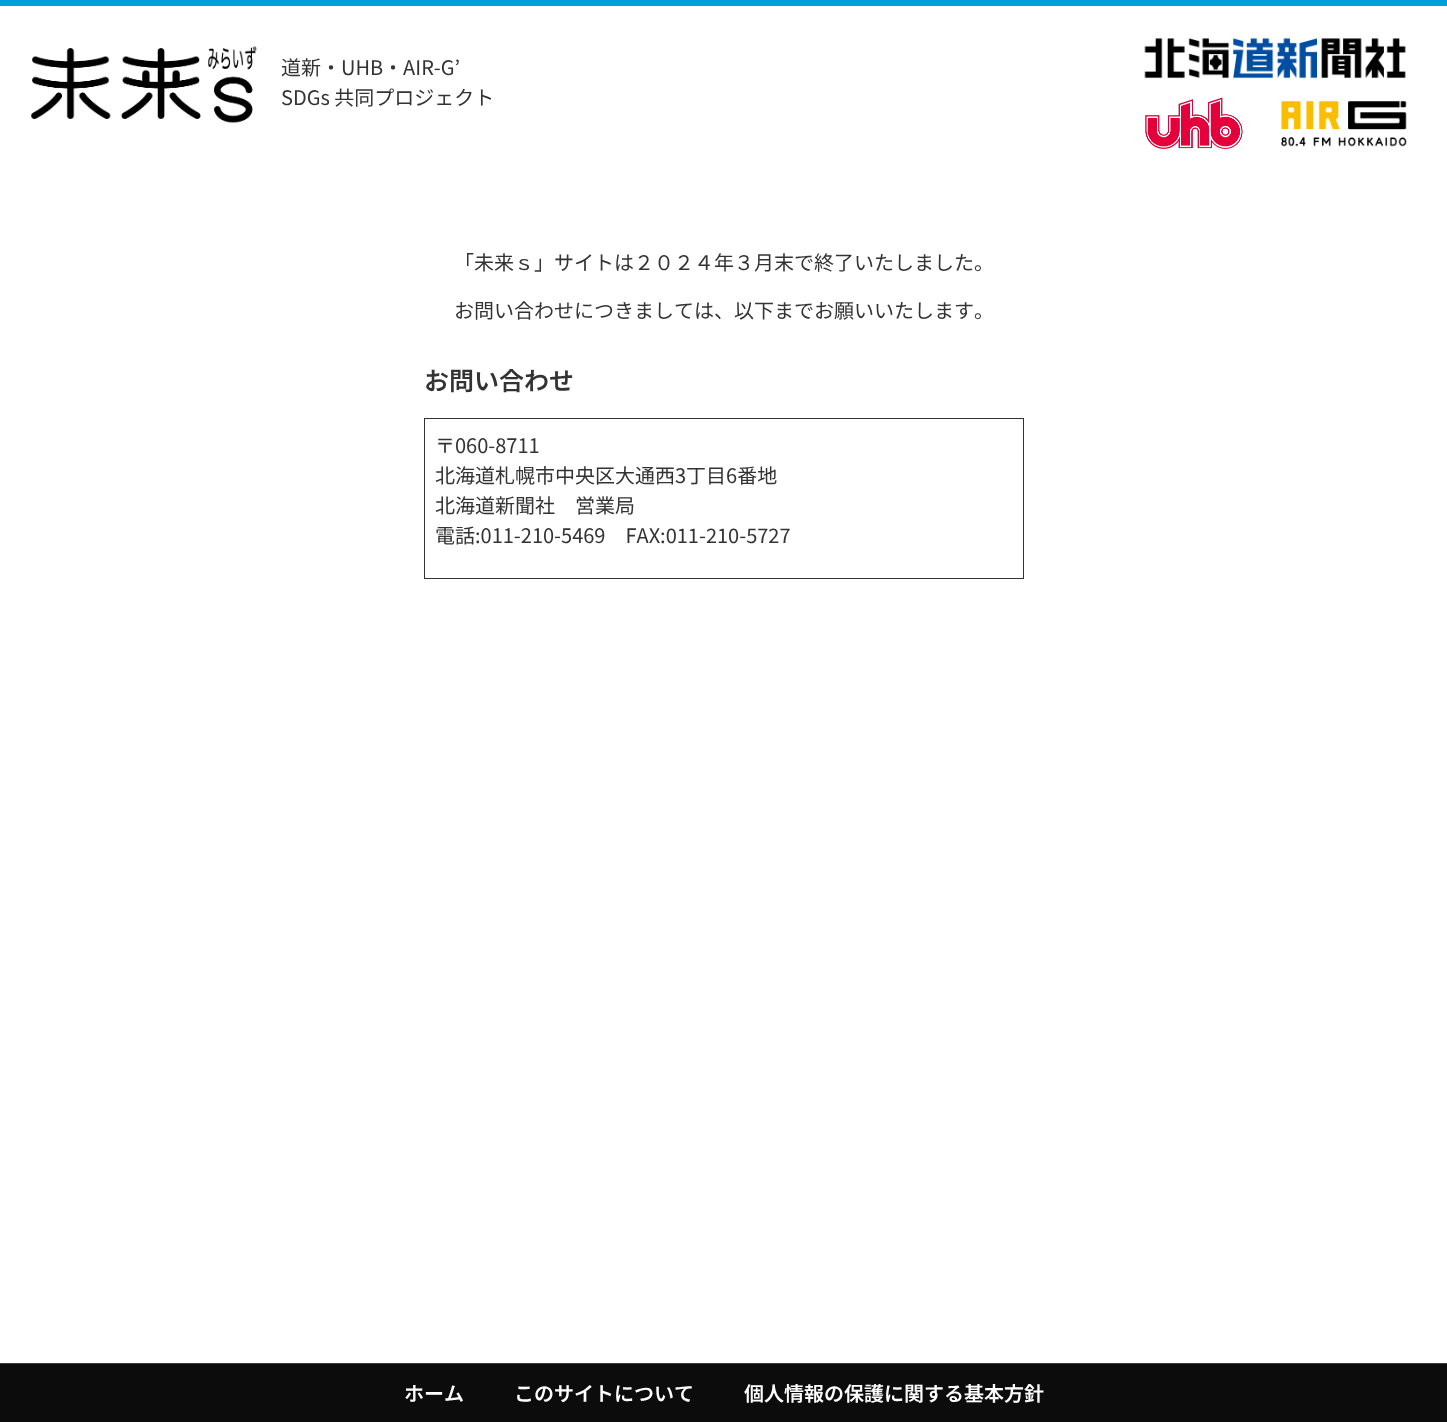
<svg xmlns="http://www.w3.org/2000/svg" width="1447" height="1422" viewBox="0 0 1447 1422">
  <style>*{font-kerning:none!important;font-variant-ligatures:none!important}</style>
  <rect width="100%" height="100%" fill="rgb(255,255,255)"/>
  <rect x="0" y="0" width="1447" height="6" fill="rgb(0,158,219)"/>
  <image x="31" y="46" width="226" height="77" href="pic1.png"/>
  <g font-family="Noto Sans JP" font-size="20" fill="rgb(51,51,51)">
    <text>
      <tspan x="281" y="75">道新・UHB・AIR-G’</tspan>
      <tspan x="281" y="105">SDGs 共同プロジェクト</tspan>
    </text>
  </g>
  <image x="1144" y="38" width="262" height="41" href="pic2.png"/>
  <image x="1145" y="97" width="98" height="52" href="pic3.png"/>
  <image x="1281" y="101" width="126" height="46" href="pic4.png"/>
  <g font-family="Noto Sans JP" font-size="20" fill="rgb(51,51,51)">
    <text x="454" y="270">「未来ｓ」サイトは２０２４年３月末で終了いたしました。</text>
    <text x="454" y="318">お問い合わせにつきましては、以下までお願いいたします。</text>
  </g>
  <text x="424" y="390" font-family="Noto Sans JP" font-size="25" font-weight="600" fill="rgb(51,51,51)">お問い合わせ</text>
  <rect x="424.5" y="418.5" width="599" height="160" fill="none" stroke="rgb(51,51,51)"/>
  <g font-family="Noto Sans JP" font-size="20" fill="rgb(51,51,51)">
    <text>
      <tspan x="435" y="453">〒060-8711</tspan>
      <tspan x="435" y="483">北海道札幌市中央区大通西3丁目6番地</tspan>
      <tspan x="435" y="513">北海道新聞社　営業局</tspan>
      <tspan x="435" y="543">電話:011-210-5469　FAX:011-210-5727</tspan>
    </text>
  </g>
  <rect x="0" y="1364" width="1447" height="58" fill="rgb(12,12,12)"/>
  <rect x="0" y="1363" width="1447" height="1" fill="rgb(61,61,61)"/>
  <g font-family="Noto Sans JP" font-size="20" font-weight="600" fill="rgb(255,255,255)">
    <text x="404" y="1401">ホーム</text>
    <text x="514" y="1401">このサイトについて</text>
    <text x="744" y="1401">個人情報の保護に関する基本方針</text>
  </g>
</svg>
